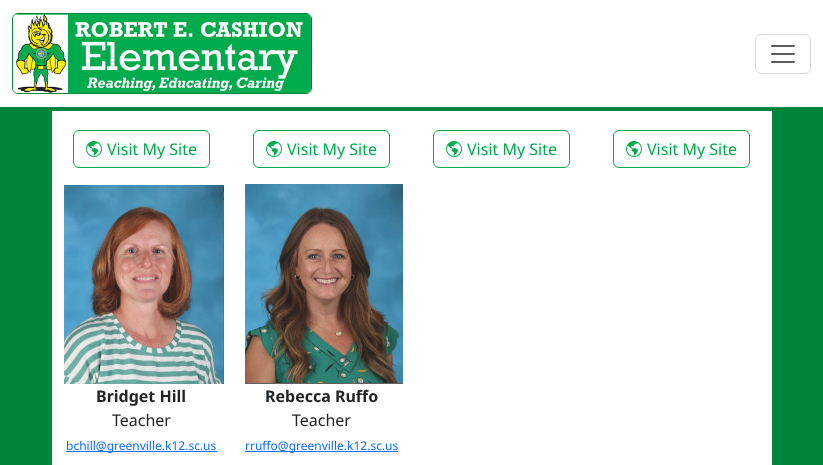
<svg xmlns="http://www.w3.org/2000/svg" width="823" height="465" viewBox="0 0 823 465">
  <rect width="100%" height="100%" fill="rgb(0,133,60)"/>
  <rect x="0" y="0" width="823" height="107" fill="rgb(255,255,255)"/>
  <rect x="12.5" y="13.5" width="299" height="80" rx="5.5" fill="none" stroke="rgb(0,133,60)"/>
  <image x="13" y="14" width="298" height="79" href="pic1.png"/>
  <rect x="755.5" y="34.5" width="55" height="39" rx="5.5" fill="none" stroke="rgb(217,217,217)"/>
  <image x="771" y="45" width="24" height="18" href="pic2.png"/>
  <rect x="52" y="111" width="720" height="354" fill="rgb(255,255,255)"/>
  <rect x="73.5" y="130.5" width="136" height="37" rx="5.5" fill="none" stroke="rgb(0,171,78)"/>
  <image x="86" y="141" width="16" height="16" href="pic3.png"/>
  <text x="107" y="155" font-family="Noto Sans" font-size="16" fill="rgb(0,171,78)">Visit My Site</text>
  <rect x="253.5" y="130.5" width="136" height="37" rx="5.5" fill="none" stroke="rgb(0,171,78)"/>
  <image x="266" y="141" width="16" height="16" href="pic3.png"/>
  <text x="287" y="155" font-family="Noto Sans" font-size="16" fill="rgb(0,171,78)">Visit My Site</text>
  <rect x="433.5" y="130.5" width="136" height="37" rx="5.5" fill="none" stroke="rgb(0,171,78)"/>
  <image x="446" y="141" width="16" height="16" href="pic3.png"/>
  <text x="467" y="155" font-family="Noto Sans" font-size="16" fill="rgb(0,171,78)">Visit My Site</text>
  <rect x="613.5" y="130.5" width="136" height="37" rx="5.5" fill="none" stroke="rgb(0,171,78)"/>
  <image x="626" y="141" width="16" height="16" href="pic3.png"/>
  <text x="647" y="155" font-family="Noto Sans" font-size="16" fill="rgb(0,171,78)">Visit My Site</text>
  <image x="64" y="185" width="160" height="199" href="pic4.png"/>
  <text x="96" y="402" font-family="Noto Sans" font-size="16" font-weight="bold" fill="rgb(33,37,41)">Bridget Hill</text>
  <text x="112" y="426" font-family="Noto Sans" font-size="16" fill="rgb(33,37,41)">Teacher</text>
  <rect x="66" y="451" width="151" height="1" fill="rgb(13,110,253)"/>
  <text x="66" y="450" font-family="Noto Sans" font-size="12" fill="rgb(13,110,253)">bchill@greenville.k12.sc.us</text>
  <image x="245" y="184" width="158" height="200" href="pic5.png"/>
  <text x="265" y="402" font-family="Noto Sans" font-size="16" font-weight="bold" fill="rgb(33,37,41)">Rebecca Ruffo</text>
  <text x="292" y="426" font-family="Noto Sans" font-size="16" fill="rgb(33,37,41)">Teacher</text>
  <rect x="245" y="451" width="153" height="1" fill="rgb(13,110,253)"/>
  <text x="245" y="450" font-family="Noto Sans" font-size="12" fill="rgb(13,110,253)">rruffo@greenville.k12.sc.us</text>
</svg>
